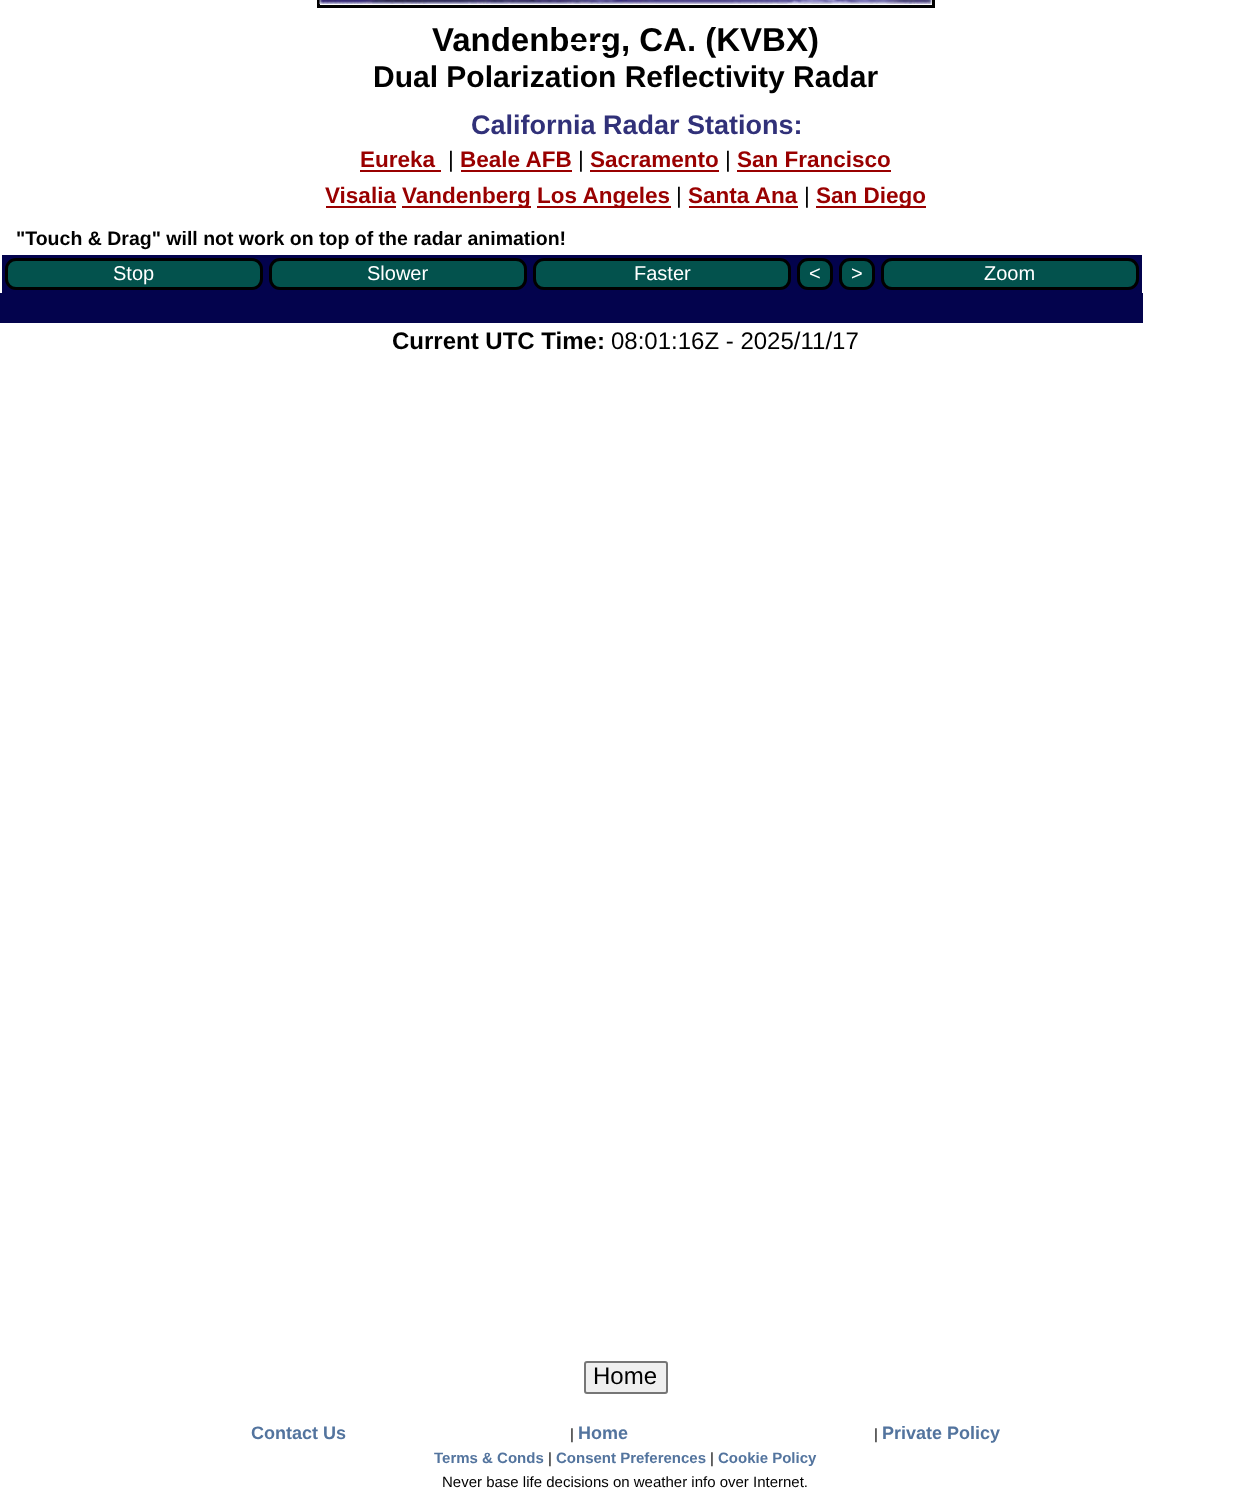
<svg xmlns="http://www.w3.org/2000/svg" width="1251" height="1488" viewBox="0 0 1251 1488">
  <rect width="100%" height="100%" fill="rgb(255,255,255)"/>
  <rect x="318.5" y="-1.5" width="615" height="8" fill="none" stroke="rgb(0,0,0)" stroke-width="3"/>
  <image x="319" y="0" width="613" height="4" href="pic1.png"/>
  <text x="432" y="51" font-family="Liberation Sans" font-size="33" font-weight="bold" fill="rgb(0,0,0)">Vandenberg, CA. (KVBX)</text>
  <rect x="570" y="42" width="39" height="3" fill="rgb(255,255,255)"/>
  <text x="373" y="87" font-family="Liberation Sans" font-size="30" font-weight="bold" fill="rgb(0,0,0)">Dual Polarization Reflectivity Radar</text>
  <text x="471" y="134" font-family="Liberation Sans" font-size="27" font-weight="bold" fill="rgb(49,49,121)">California Radar Stations:</text>
  <text x="360" y="167" font-family="Liberation Sans" font-size="22.5" font-weight="bold" fill="rgb(153,0,0)">Eureka</text>
  <rect x="360" y="170" width="81" height="2" fill="rgb(153,0,0)"/>
  <text x="448" y="167" font-family="Liberation Sans" font-size="22.5" fill="rgb(0,0,0)">|</text>
  <text x="460" y="167" font-family="Liberation Sans" font-size="22.5" font-weight="bold" fill="rgb(153,0,0)">Beale AFB</text>
  <rect x="461" y="170" width="111" height="2" fill="rgb(153,0,0)"/>
  <text x="578" y="167" font-family="Liberation Sans" font-size="22.5" fill="rgb(0,0,0)">|</text>
  <text x="590" y="167" font-family="Liberation Sans" font-size="22.5" font-weight="bold" fill="rgb(153,0,0)">Sacramento</text>
  <rect x="590" y="170" width="129" height="2" fill="rgb(153,0,0)"/>
  <text x="725" y="167" font-family="Liberation Sans" font-size="22.5" fill="rgb(0,0,0)">|</text>
  <text x="737" y="167" font-family="Liberation Sans" font-size="22.5" font-weight="bold" fill="rgb(153,0,0)">San Francisco</text>
  <rect x="737" y="170" width="154" height="2" fill="rgb(153,0,0)"/>
  <text x="325" y="203" font-family="Liberation Sans" font-size="22.5" font-weight="bold" fill="rgb(153,0,0)">Visalia</text>
  <rect x="326" y="206" width="70" height="2" fill="rgb(153,0,0)"/>
  <rect x="402" y="206" width="129" height="2" fill="rgb(153,0,0)"/>
  <text x="402" y="203" font-family="Liberation Sans" font-size="22.5" font-weight="bold" fill="rgb(153,0,0)">Vandenberg</text>
  <rect x="537" y="206" width="134" height="2" fill="rgb(153,0,0)"/>
  <text x="537" y="203" font-family="Liberation Sans" font-size="22.5" font-weight="bold" fill="rgb(153,0,0)">Los Angeles</text>
  <text x="676" y="203" font-family="Liberation Sans" font-size="22.5" fill="rgb(0,0,0)">|</text>
  <text x="688" y="203" font-family="Liberation Sans" font-size="22.5" font-weight="bold" fill="rgb(153,0,0)">Santa Ana</text>
  <rect x="689" y="206" width="109" height="2" fill="rgb(153,0,0)"/>
  <text x="804" y="203" font-family="Liberation Sans" font-size="22.5" fill="rgb(0,0,0)">|</text>
  <rect x="816" y="206" width="110" height="2" fill="rgb(153,0,0)"/>
  <text x="816" y="203" font-family="Liberation Sans" font-size="22.5" font-weight="bold" fill="rgb(153,0,0)">San Diego</text>
  <text x="16" y="245" font-family="Liberation Sans" font-size="19.5" font-weight="bold" fill="rgb(0,0,0)">"Touch &amp; Drag" will not work on top of the radar animation!</text>
  <rect x="2" y="255" width="1140" height="38" fill="rgb(3,3,77)"/>
  <rect x="6.5" y="259.5" width="255" height="29" rx="9.5" fill="rgb(3,82,77)" stroke="rgb(0,0,0)" stroke-width="3"/>
  <text x="113" y="280" font-family="Liberation Sans" font-size="20" fill="rgb(255,255,255)">Stop</text>
  <rect x="270.5" y="259.5" width="255" height="29" rx="9.5" fill="rgb(3,82,77)" stroke="rgb(0,0,0)" stroke-width="3"/>
  <text x="367" y="280" font-family="Liberation Sans" font-size="20" fill="rgb(255,255,255)">Slower</text>
  <rect x="534.5" y="259.5" width="255" height="29" rx="9.5" fill="rgb(3,82,77)" stroke="rgb(0,0,0)" stroke-width="3"/>
  <text x="634" y="280" font-family="Liberation Sans" font-size="20" fill="rgb(255,255,255)">Faster</text>
  <rect x="798.5" y="259.5" width="33" height="29" rx="9.5" fill="rgb(3,82,77)" stroke="rgb(0,0,0)" stroke-width="3"/>
  <text x="809" y="280" font-family="Liberation Sans" font-size="20" fill="rgb(255,255,255)">&lt;</text>
  <rect x="840.5" y="259.5" width="33" height="29" rx="9.5" fill="rgb(3,82,77)" stroke="rgb(0,0,0)" stroke-width="3"/>
  <text x="851" y="280" font-family="Liberation Sans" font-size="20" fill="rgb(255,255,255)">&gt;</text>
  <rect x="882.5" y="259.5" width="255" height="29" rx="9.5" fill="rgb(3,82,77)" stroke="rgb(0,0,0)" stroke-width="3"/>
  <text x="984" y="280" font-family="Liberation Sans" font-size="20" fill="rgb(255,255,255)">Zoom</text>
  <rect x="0" y="293" width="1143" height="30" fill="rgb(3,3,77)"/>
  <text x="392" y="349" font-family="Liberation Sans" font-size="24" font-weight="bold" fill="rgb(0,0,0)">Current UTC Time:</text>
  <text x="611" y="349" font-family="Liberation Sans" font-size="24" fill="rgb(0,0,0)">08:01:16Z - 2025/11/17</text>
  <rect x="585" y="1362" width="82" height="31" rx="2" fill="rgb(239,239,239)" stroke="rgb(118,118,118)" stroke-width="2"/>
  <text x="593" y="1384" font-family="Liberation Sans" font-size="24" fill="rgb(0,0,0)">Home</text>
  <text x="251" y="1439" font-family="Liberation Sans" font-size="18" font-weight="bold" fill="rgb(83,116,158)">Contact Us</text>
  <text x="570" y="1439" font-family="Liberation Sans" font-size="15" fill="rgb(0,0,0)">|</text>
  <text x="578" y="1439" font-family="Liberation Sans" font-size="18" font-weight="bold" fill="rgb(83,116,158)">Home</text>
  <text x="874" y="1439" font-family="Liberation Sans" font-size="15" fill="rgb(0,0,0)">|</text>
  <text x="882" y="1439" font-family="Liberation Sans" font-size="18" font-weight="bold" fill="rgb(83,116,158)">Private Policy</text>
  <text x="434" y="1463" font-family="Liberation Sans" font-size="15" font-weight="bold" fill="rgb(83,116,158)">Terms &amp; Conds</text>
  <text x="548" y="1463" font-family="Liberation Sans" font-size="15" fill="rgb(0,0,0)">|</text>
  <text x="556" y="1463" font-family="Liberation Sans" font-size="15" font-weight="bold" fill="rgb(83,116,158)">Consent Preferences</text>
  <text x="710" y="1463" font-family="Liberation Sans" font-size="15" fill="rgb(0,0,0)">|</text>
  <text x="718" y="1463" font-family="Liberation Sans" font-size="15" font-weight="bold" fill="rgb(83,116,158)">Cookie Policy</text>
  <text x="442" y="1487" font-family="Liberation Sans" font-size="15" fill="rgb(0,0,0)">Never base life decisions on weather info over Internet.</text>
</svg>
